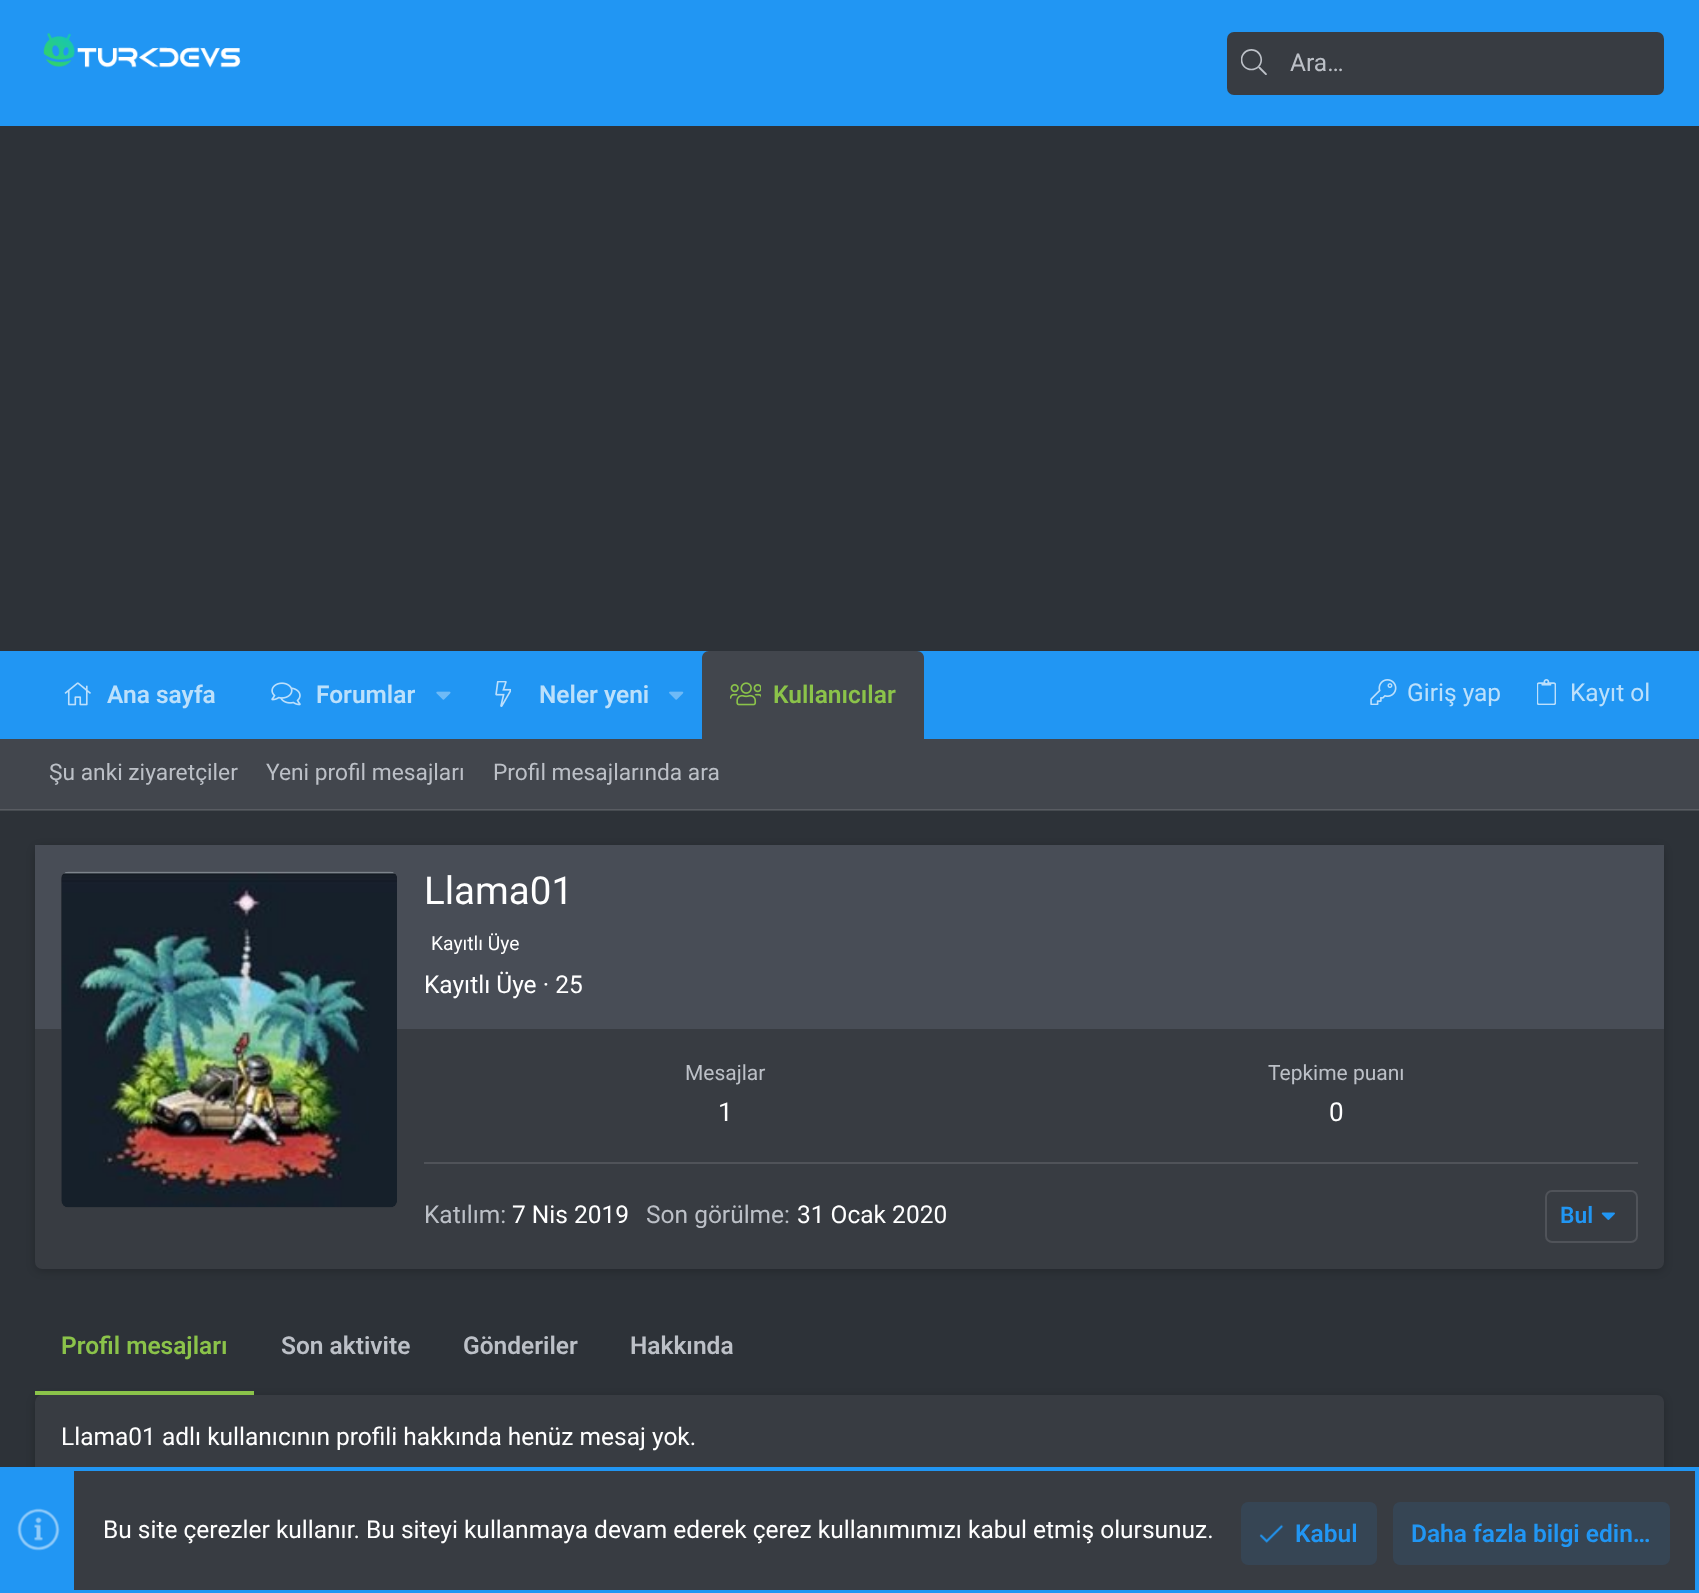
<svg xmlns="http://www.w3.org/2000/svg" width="1699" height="1593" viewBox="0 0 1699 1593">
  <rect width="100%" height="100%" fill="rgb(45,50,56)"/>
  <rect x="0" y="810" width="1699" height="1" fill="rgb(70,75,80)"/>
  <rect x="0" y="0" width="1699" height="126" fill="rgb(33,150,243)"/>
  <image x="43" y="33" width="198" height="35" href="pic1.png"/>
  <rect x="1227" y="32" width="437" height="63" rx="7" fill="rgb(56,60,66)"/>
  <image x="1241" y="49" width="26" height="26" href="pic2.png"/>
  <text x="1290" y="71" font-family="Roboto" font-size="24.5" fill="rgb(188,192,199)">Ara…</text>
  <rect x="0" y="651" width="1699" height="88" fill="rgb(33,150,243)"/>
  <image x="64" y="682" width="27" height="24" href="pic3.png"/>
  <text x="107" y="703" font-family="Roboto" font-size="24.5" font-weight="600" fill="rgb(188,224,251)">Ana sayfa</text>
  <image x="271" y="682" width="30" height="24" href="pic4.png"/>
  <text x="316" y="703" font-family="Roboto" font-size="24.5" font-weight="600" fill="rgb(188,224,251)">Forumlar</text>
  <image x="436" y="691" width="15" height="9" href="pic5.png"/>
  <image x="495" y="681" width="16" height="26" href="pic6.png"/>
  <text x="539" y="703" font-family="Roboto" font-size="24.5" font-weight="600" fill="rgb(188,224,251)">Neler yeni</text>
  <image x="669" y="691" width="15" height="9" href="pic7.png"/>
  <path d="M709 651H917C921 651 924 654 924 658V739H702V658C702 654 705 651 709 651Z" fill="rgb(66,70,77)"/>
  <image x="730" y="682" width="31" height="24" href="pic8.png"/>
  <text x="773" y="703" font-family="Roboto" font-size="24.5" font-weight="600" fill="rgb(139,195,74)">Kullanıcılar</text>
  <image x="1370" y="679" width="27" height="26" href="pic9.png"/>
  <text x="1407" y="701" font-family="Roboto" font-size="24.5" fill="rgb(188,224,251)">Giriş yap</text>
  <image x="1537" y="679" width="19" height="26" href="pic10.png"/>
  <text x="1570" y="701" font-family="Roboto" font-size="24.5" fill="rgb(188,224,251)">Kayıt ol</text>
  <rect x="0" y="739" width="1699" height="70" fill="rgb(66,70,77)"/>
  <rect x="0" y="809" width="1699" height="1" fill="rgb(89,92,98)"/>
  <g font-family="Roboto" font-size="22.75" fill="rgb(188,192,199)">
    <text x="49" y="780">Şu anki ziyaretçiler</text>
    <text x="266" y="780">Yeni profil mesajları</text>
    <text x="493" y="780">Profil mesajlarında ara</text>
  </g>
  <rect x="35" y="847" width="1629" height="424" rx="7" fill="rgba(0,0,0,0.2)" filter="blur(4.5px)"/>
  <rect x="35" y="845" width="1629" height="424" rx="7" fill="rgb(56,60,66)"/>
  <rect x="35" y="845" width="1629" height="184" fill="rgb(72,77,86)"/>
  <rect x="61" y="872" width="336" height="336" rx="7" fill="rgb(56,60,66)"/>
  <image x="61" y="871" width="336" height="337" href="pic11.png"/>
  <text x="424" y="904" font-family="Roboto" font-size="38.5" fill="rgb(255,255,255)">Llama01</text>
  <text x="431" y="950" font-family="Roboto" font-size="19.25" fill="rgb(255,255,255)">Kayıtlı Üye</text>
  <text x="424" y="993" font-family="Roboto" font-size="24.5" fill="rgb(255,255,255)">Kayıtlı Üye · 25</text>
  <text x="685" y="1080" font-family="Roboto" font-size="21" fill="rgb(188,192,199)">Mesajlar</text>
  <text x="718" y="1121" font-family="Roboto" font-size="26" fill="rgb(255,255,255)">1</text>
  <text x="1268" y="1080" font-family="Roboto" font-size="21" fill="rgb(188,192,199)">Tepkime puanı</text>
  <text x="1329" y="1121" font-family="Roboto" font-size="26" fill="rgb(255,255,255)">0</text>
  <rect x="424" y="1162" width="1214" height="2" fill="rgb(80,83,89)"/>
  <text x="424" y="1223" font-family="Roboto" font-size="24.5" fill="rgb(188,192,199)">Katılım:</text>
  <text x="512" y="1223" font-family="Roboto" font-size="24.5" fill="rgb(255,255,255)">7 Nis 2019</text>
  <text x="646" y="1223" font-family="Roboto" font-size="24.5" fill="rgb(188,192,199)">Son görülme:</text>
  <text x="797" y="1223" font-family="Roboto" font-size="24.5" fill="rgb(255,255,255)">31 Ocak 2020</text>
  <rect x="1546" y="1191" width="91" height="51" rx="6" fill="none" stroke="rgb(80,83,89)" stroke-width="2"/>
  <text x="1560" y="1223" font-family="Roboto" font-size="22.75" font-weight="600" fill="rgb(33,150,243)">Bul</text>
  <image x="1601" y="1212" width="14" height="8" href="pic12.png"/>
  <rect x="35" y="1397" width="1629" height="85" rx="7" fill="rgba(0,0,0,0.2)" filter="blur(4.5px)"/>
  <rect x="35" y="1391" width="219" height="4" fill="rgb(139,195,74)"/>
  <text x="61" y="1354" font-family="Roboto" font-size="24.5" font-weight="600" fill="rgb(139,195,74)">Profil mesajları</text>
  <g font-family="Roboto" font-size="24.5" font-weight="600" fill="rgb(188,192,199)">
    <text x="281" y="1354">Son aktivite</text>
    <text x="463" y="1354">Gönderiler</text>
    <text x="630" y="1354">Hakkında</text>
  </g>
  <rect x="35" y="1395" width="1629" height="86" rx="7" fill="rgb(56,60,66)"/>
  <text x="61" y="1445" font-family="Roboto" font-size="24.5" fill="rgb(255,255,255)">Llama01 adlı kullanıcının profili hakkında henüz mesaj yok.</text>
  <rect x="74" y="1471" width="1621" height="119" fill="rgb(56,60,66)"/>
  <rect x="2" y="1469" width="1695" height="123" fill="none" stroke="rgb(33,150,243)" stroke-width="4"/>
  <rect x="4" y="1471" width="70" height="119" fill="rgb(33,150,243)"/>
  <image x="17" y="1508" width="43" height="43" href="pic13.png"/>
  <text x="103" y="1538" font-family="Roboto" font-size="24.5" fill="rgb(255,255,255)">Bu site çerezler kullanır. Bu siteyi kullanmaya devam ederek çerez kullanımımızı kabul etmiş olursunuz.</text>
  <rect x="1241" y="1502" width="136" height="63" rx="7" fill="rgb(54,69,84)"/>
  <image x="1259" y="1524" width="25" height="19" href="pic14.png"/>
  <text x="1295" y="1542" font-family="Roboto" font-size="24.5" font-weight="600" fill="rgb(33,150,243)">Kabul</text>
  <rect x="1393" y="1502" width="277" height="63" rx="7" fill="rgb(54,69,84)"/>
  <text x="1411" y="1542" font-family="Roboto" font-size="24.5" font-weight="600" fill="rgb(33,150,243)">Daha fazla bilgi edin…</text>
</svg>
